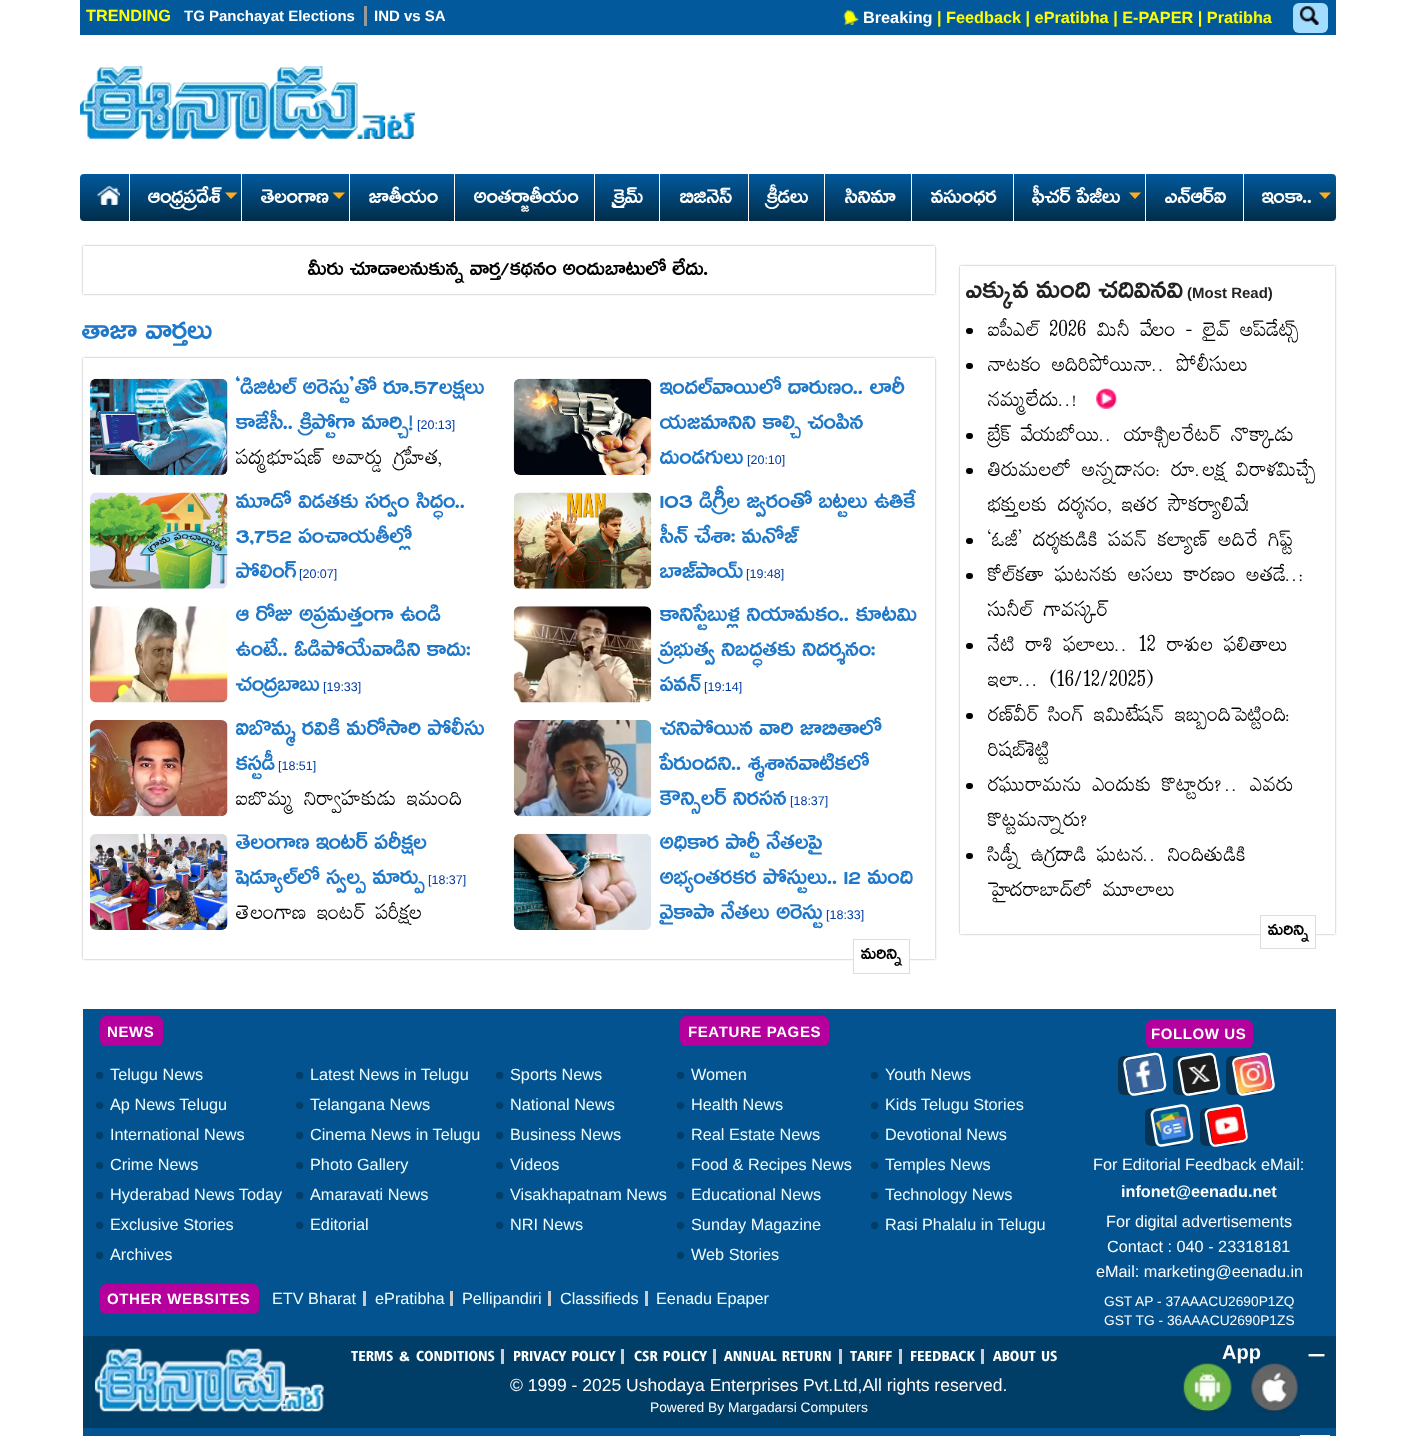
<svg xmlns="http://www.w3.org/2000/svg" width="1417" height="1436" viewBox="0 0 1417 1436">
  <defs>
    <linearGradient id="g1" gradientUnits="userSpaceOnUse" x1="708" y1="174" x2="708" y2="221"><stop offset="0" stop-color="rgb(2,89,156)"/><stop offset="1" stop-color="rgb(1,45,74)"/></linearGradient>
    <clipPath id="clip1"><path d="M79 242H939V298H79ZM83 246H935V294H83Z" clip-rule="evenodd"/></clipPath>
    <clipPath id="clip2"><path d="M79 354H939V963H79ZM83 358H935V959H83Z" clip-rule="evenodd"/></clipPath>
    <clipPath id="clip3"><path d="M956 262H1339V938H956ZM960 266H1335V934H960Z" clip-rule="evenodd"/></clipPath>
    <clipPath id="clip4"><path d="M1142 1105H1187V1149H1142ZM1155.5 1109L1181.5 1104C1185 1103.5 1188 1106 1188.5 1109.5L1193.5 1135C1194 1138.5 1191.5 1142 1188 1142.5L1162.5 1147C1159 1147.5 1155.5 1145.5 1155 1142L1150.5 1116C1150 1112.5 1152 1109.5 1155.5 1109Z" clip-rule="evenodd"/></clipPath>
  </defs>
  <rect width="100%" height="100%" fill="rgb(255,255,255)"/>
  <rect x="80" y="0" width="1256" height="35" fill="rgb(2,89,156)"/>
  <text x="86" y="21" font-family="Liberation Sans" font-size="16.25" font-weight="bold" fill="rgb(255,255,0)">TRENDING</text>
  <rect x="364" y="6" width="3" height="20" fill="rgb(153,153,153)"/>
  <g font-family="Liberation Sans" font-size="15" font-weight="bold" fill="rgb(255,255,255)">
    <text x="184" y="21">TG Panchayat Elections</text>
    <text x="374" y="21">IND vs SA</text>
  </g>
  <image x="843" y="10" width="16" height="15" href="pic1.png"/>
  <text x="863" y="23" font-family="Liberation Sans" font-size="16.25" font-weight="bold" fill="rgb(255,255,255)">Breaking</text>
  <text x="937" y="23" font-family="Liberation Sans" font-size="16.25" font-weight="bold" fill="rgb(255,255,0)">| Feedback | ePratibha | E-PAPER | Pratibha</text>
  <rect x="1293" y="3" width="35" height="30" rx="6" fill="rgb(162,221,255)"/>
  <image x="1299" y="6" width="20" height="19" href="pic2.png"/>
  <image x="80" y="66" width="335" height="73" href="pic3.png"/>
  <rect x="80" y="174" width="1256" height="47" rx="4" fill="url(#g1)"/>
  <rect x="129" y="174" width="1" height="47" fill="rgb(255,255,255)"/>
  <image x="97" y="186" width="23" height="19" href="pic4.png"/>
  <rect x="241" y="174" width="1" height="47" fill="rgb(255,255,255)"/>
  <text x="148" y="203" font-family="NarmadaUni" font-size="30" fill="rgb(255,255,255)">ఆంధ్రప్రదేశ్</text>
  <path d="M225 192.5H237.5L231 199Z" fill="rgb(255,172,30)"/>
  <rect x="349" y="174" width="1" height="47" fill="rgb(255,255,255)"/>
  <text x="261" y="203" font-family="NarmadaUni" font-size="30" fill="rgb(255,255,255)">తెలంగాణ</text>
  <path d="M332.5 192.5H345L339 199Z" fill="rgb(255,172,30)"/>
  <rect x="454" y="174" width="1" height="47" fill="rgb(255,255,255)"/>
  <text x="369" y="203" font-family="NarmadaUni" font-size="30" fill="rgb(255,255,255)">జాతీయం</text>
  <rect x="594" y="174" width="1" height="47" fill="rgb(255,255,255)"/>
  <text x="474" y="203" font-family="NarmadaUni" font-size="30" fill="rgb(255,255,255)">అంతర్జాతీయం</text>
  <rect x="659" y="174" width="1" height="47" fill="rgb(255,255,255)"/>
  <text x="614" y="203" font-family="NarmadaUni" font-size="30" fill="rgb(255,255,255)">క్రైమ్</text>
  <rect x="748" y="174" width="1" height="47" fill="rgb(255,255,255)"/>
  <text x="680" y="203" font-family="NarmadaUni" font-size="30" fill="rgb(255,255,255)">బిజినెస్</text>
  <rect x="824" y="174" width="1" height="47" fill="rgb(255,255,255)"/>
  <text x="767" y="203" font-family="NarmadaUni" font-size="30" fill="rgb(255,255,255)">క్రీడలు</text>
  <rect x="911" y="174" width="1" height="47" fill="rgb(255,255,255)"/>
  <text x="845" y="203" font-family="NarmadaUni" font-size="30" fill="rgb(255,255,255)">సినిమా</text>
  <rect x="1013" y="174" width="1" height="47" fill="rgb(255,255,255)"/>
  <text x="931" y="203" font-family="NarmadaUni" font-size="30" fill="rgb(255,255,255)">వసుంధర</text>
  <rect x="1145" y="174" width="1" height="47" fill="rgb(255,255,255)"/>
  <text x="1032" y="203" font-family="NarmadaUni" font-size="30" fill="rgb(255,255,255)">ఫీచర్ పేజీలు</text>
  <path d="M1129 192.5H1141L1135 199Z" fill="rgb(255,172,30)"/>
  <rect x="1243" y="174" width="1" height="47" fill="rgb(255,255,255)"/>
  <g font-family="NarmadaUni" font-size="30" fill="rgb(255,255,255)">
    <text x="1165" y="203">ఎన్ఆర్ఐ</text>
    <text x="1262" y="203">ఇంకా..</text>
  </g>
  <path d="M1319 192.5H1331L1325 199Z" fill="rgb(255,172,30)"/>
  <g clip-path="url(#clip1)">
    <rect x="83" y="246" width="852" height="48" fill="rgb(165,165,165)" filter="blur(1px)"/>
  </g>
  <text x="308" y="275" font-family="NarmadaUni" font-size="30" fill="rgb(0,0,0)">మీరు చూడాలనుకున్న వార్త/కథనం అందుబాటులో లేదు.</text>
  <text x="82" y="339" font-family="NarmadaUni" font-size="41" fill="rgb(31,120,201)">తాజా వార్తలు</text>
  <g clip-path="url(#clip2)">
    <rect x="83" y="358" width="852" height="601" fill="rgb(165,165,165)" filter="blur(1px)"/>
  </g>
  <image x="90" y="378" width="138" height="97" href="pic5.png"/>
  <g font-family="NarmadaUni" font-size="32.5" fill="rgb(31,120,201)">
    <text>
      <tspan x="236" y="394">‘డిజిటల్‌ అరెస్టు’తో రూ.57లక్షలు</tspan>
      <tspan x="236" y="429">కాజేసీ.. క్రిప్టోగా మార్చి!</tspan>
    </text>
  </g>
  <text x="417" y="429" font-family="Liberation Sans" font-size="12.5" fill="rgb(0,58,166)">[20:13]</text>
  <text x="236" y="464" font-family="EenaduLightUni" font-size="32.5" font-weight="300" fill="rgb(0,0,0)">పద్మభూషణ్‌ అవార్డు గ్రహీత,</text>
  <image x="513" y="378" width="139" height="97" href="pic6.png"/>
  <g font-family="NarmadaUni" font-size="32.5" fill="rgb(31,120,201)">
    <text>
      <tspan x="660" y="394">ఇందల్‌వాయిలో దారుణం.. లారీ</tspan>
      <tspan x="660" y="429">యజమానిని కాల్చి చంపిన</tspan>
      <tspan x="660" y="464">దుండగులు</tspan>
    </text>
  </g>
  <text x="747" y="464" font-family="Liberation Sans" font-size="12.5" fill="rgb(0,58,166)">[20:10]</text>
  <image x="90" y="492" width="138" height="97" href="pic7.png"/>
  <g font-family="NarmadaUni" font-size="32.5" fill="rgb(31,120,201)">
    <text>
      <tspan x="236" y="508">మూడో విడతకు సర్వం సిద్ధం..</tspan>
      <tspan x="236" y="543">3,752 పంచాయతీల్లో</tspan>
      <tspan x="236" y="578">పోలింగ్‌</tspan>
    </text>
  </g>
  <text x="299" y="578" font-family="Liberation Sans" font-size="12.5" fill="rgb(0,58,166)">[20:07]</text>
  <image x="513" y="492" width="139" height="97" href="pic8.png"/>
  <g font-family="NarmadaUni" font-size="32.5" fill="rgb(31,120,201)">
    <text>
      <tspan x="660" y="508">103 డిగ్రీల జ్వరంతో బట్టలు ఉతికే</tspan>
      <tspan x="660" y="543">సీన్‌ చేశా: మనోజ్‌</tspan>
      <tspan x="660" y="578">బాజ్‌పాయ్‌</tspan>
    </text>
  </g>
  <text x="746" y="578" font-family="Liberation Sans" font-size="12.5" fill="rgb(0,58,166)">[19:48]</text>
  <image x="90" y="606" width="138" height="97" href="pic9.png"/>
  <g font-family="NarmadaUni" font-size="32.5" fill="rgb(31,120,201)">
    <text>
      <tspan x="236" y="621">ఆ రోజు అప్రమత్తంగా ఉండి</tspan>
      <tspan x="236" y="656">ఉంటే.. ఓడిపోయేవాడిని కాదు:</tspan>
      <tspan x="236" y="691">చంద్రబాబు</tspan>
    </text>
  </g>
  <text x="323" y="691" font-family="Liberation Sans" font-size="12.5" fill="rgb(0,58,166)">[19:33]</text>
  <image x="513" y="606" width="139" height="97" href="pic10.png"/>
  <g font-family="NarmadaUni" font-size="32.5" fill="rgb(31,120,201)">
    <text>
      <tspan x="660" y="621">కానిస్టేబుళ్ల నియామకం.. కూటమి</tspan>
      <tspan x="660" y="656">ప్రభుత్వ నిబద్ధతకు నిదర్శనం:</tspan>
      <tspan x="660" y="691">పవన్‌</tspan>
    </text>
  </g>
  <text x="704" y="691" font-family="Liberation Sans" font-size="12.5" fill="rgb(0,58,166)">[19:14]</text>
  <image x="90" y="720" width="138" height="97" href="pic11.png"/>
  <g font-family="NarmadaUni" font-size="32.5" fill="rgb(31,120,201)">
    <text>
      <tspan x="236" y="735">ఐబొమ్మ రవికి మరోసారి పోలీసు</tspan>
      <tspan x="236" y="770">కస్టడీ</tspan>
    </text>
  </g>
  <text x="278" y="770" font-family="Liberation Sans" font-size="12.5" fill="rgb(0,58,166)">[18:51]</text>
  <text x="236" y="805" font-family="EenaduLightUni" font-size="32.5" font-weight="300" fill="rgb(0,0,0)">ఐబొమ్మ నిర్వాహకుడు ఇమంది</text>
  <image x="513" y="720" width="139" height="97" href="pic12.png"/>
  <g font-family="NarmadaUni" font-size="32.5" fill="rgb(31,120,201)">
    <text>
      <tspan x="660" y="735">చనిపోయిన వారి జాబితాలో</tspan>
      <tspan x="660" y="770">పేరుందని.. శ్మశానవాటికలో</tspan>
      <tspan x="660" y="805">కౌన్సిలర్‌ నిరసన</tspan>
    </text>
  </g>
  <text x="790" y="805" font-family="Liberation Sans" font-size="12.5" fill="rgb(0,58,166)">[18:37]</text>
  <image x="90" y="833" width="138" height="97" href="pic13.png"/>
  <g font-family="NarmadaUni" font-size="32.5" fill="rgb(31,120,201)">
    <text>
      <tspan x="236" y="849">తెలంగాణ ఇంటర్‌ పరీక్షల</tspan>
      <tspan x="236" y="884">షెడ్యూల్‌లో స్వల్ప మార్పు</tspan>
    </text>
  </g>
  <text x="428" y="884" font-family="Liberation Sans" font-size="12.5" fill="rgb(0,58,166)">[18:37]</text>
  <text x="236" y="919" font-family="EenaduLightUni" font-size="32.5" font-weight="300" fill="rgb(0,0,0)">తెలంగాణ ఇంటర్‌ పరీక్షల</text>
  <image x="513" y="833" width="138" height="97" href="pic14.png"/>
  <g font-family="NarmadaUni" font-size="32.5" fill="rgb(31,120,201)">
    <text>
      <tspan x="660" y="849">అధికార పార్టీ నేతలపై</tspan>
      <tspan x="660" y="884">అభ్యంతరకర పోస్టులు.. 12 మంది</tspan>
      <tspan x="660" y="919">వైకాపా నేతలు అరెస్టు</tspan>
    </text>
  </g>
  <text x="826" y="919" font-family="Liberation Sans" font-size="12.5" fill="rgb(0,58,166)">[18:33]</text>
  <rect x="854" y="958" width="55" height="3" fill="rgb(255,255,255)"/>
  <rect x="853.5" y="939.5" width="56" height="34" fill="none" stroke="rgb(221,221,221)"/>
  <text x="861" y="959" font-family="NarmadaUni" font-size="25" fill="rgb(0,0,0)">మరిన్ని</text>
  <g clip-path="url(#clip3)">
    <rect x="960" y="266" width="375" height="668" fill="rgb(165,165,165)" filter="blur(1px)"/>
  </g>
  <text x="966" y="298" font-family="NarmadaUni" font-size="38.75" fill="rgb(34,34,34)">ఎక్కువ మంది చదివినవి</text>
  <text x="1187" y="298" font-family="Liberation Sans" font-size="15" font-weight="bold" fill="rgb(34,34,34)">(Most Read)</text>
  <rect x="966" y="328" width="7" height="6" rx="3" fill="rgb(0,0,0)"/>
  <text x="988" y="336" font-family="EenaduLightUni" font-size="32.5" font-weight="300" fill="rgb(0,0,0)">ఐపీఎల్‌ 2026 మినీ వేలం - లైవ్‌ అప్‌డేట్స్‌</text>
  <rect x="966" y="363" width="7" height="6" rx="3" fill="rgb(0,0,0)"/>
  <g font-family="EenaduLightUni" font-size="32.5" font-weight="300" fill="rgb(0,0,0)">
    <text>
      <tspan x="988" y="371">నాటకం అదిరిపోయినా.. పోలీసులు</tspan>
      <tspan x="988" y="406">నమ్మలేదు..!</tspan>
    </text>
  </g>
  <image x="1096" y="388" width="21" height="21" href="pic15.png"/>
  <rect x="966" y="433" width="7" height="6" rx="3" fill="rgb(0,0,0)"/>
  <text x="988" y="441" font-family="EenaduLightUni" font-size="32.5" font-weight="300" fill="rgb(0,0,0)">బ్రేక్‌ వేయబోయి.. యాక్సిలరేటర్‌ నొక్కాడు</text>
  <rect x="966" y="468" width="7" height="6" rx="3" fill="rgb(0,0,0)"/>
  <g font-family="EenaduLightUni" font-size="32.5" font-weight="300" fill="rgb(0,0,0)">
    <text>
      <tspan x="988" y="476">తిరుమలలో అన్నదానం: రూ.లక్ష విరాళమిచ్చే</tspan>
      <tspan x="988" y="511">భక్తులకు దర్శనం, ఇతర సౌకర్యాలివే!</tspan>
    </text>
  </g>
  <rect x="966" y="538" width="7" height="6" rx="3" fill="rgb(0,0,0)"/>
  <text x="988" y="546" font-family="EenaduLightUni" font-size="32.5" font-weight="300" fill="rgb(0,0,0)">‘ఓజీ’ దర్శకుడికి పవన్‌ కల్యాణ్‌ అదిరే గిఫ్ట్‌</text>
  <rect x="966" y="573" width="7" height="6" rx="3" fill="rgb(0,0,0)"/>
  <g font-family="EenaduLightUni" font-size="32.5" font-weight="300" fill="rgb(0,0,0)">
    <text>
      <tspan x="988" y="581">కోల్‌కతా ఘటనకు అసలు కారణం అతడే..:</tspan>
      <tspan x="988" y="616">సునీల్‌ గావస్కర్‌</tspan>
    </text>
  </g>
  <rect x="966" y="643" width="7" height="6" rx="3" fill="rgb(0,0,0)"/>
  <g font-family="EenaduLightUni" font-size="32.5" font-weight="300" fill="rgb(0,0,0)">
    <text>
      <tspan x="988" y="651">నేటి రాశి ఫలాలు.. 12 రాశుల ఫలితాలు</tspan>
      <tspan x="988" y="686">ఇలా... (16/12/2025)</tspan>
    </text>
  </g>
  <rect x="966" y="713" width="7" height="6" rx="3" fill="rgb(0,0,0)"/>
  <g font-family="EenaduLightUni" font-size="32.5" font-weight="300" fill="rgb(0,0,0)">
    <text>
      <tspan x="988" y="721">రణ్‌వీర్‌ సింగ్‌ ఇమిటేషన్‌ ఇబ్బందిపెట్టింది:</tspan>
      <tspan x="988" y="756">రిషబ్‌శెట్టి</tspan>
    </text>
  </g>
  <rect x="966" y="783" width="7" height="6" rx="3" fill="rgb(0,0,0)"/>
  <g font-family="EenaduLightUni" font-size="32.5" font-weight="300" fill="rgb(0,0,0)">
    <text>
      <tspan x="988" y="791">రఘురామను ఎందుకు కొట్టారు?.. ఎవరు</tspan>
      <tspan x="988" y="826">కొట్టమన్నారు?</tspan>
    </text>
  </g>
  <rect x="966" y="853" width="7" height="6" rx="3" fill="rgb(0,0,0)"/>
  <g font-family="EenaduLightUni" font-size="32.5" font-weight="300" fill="rgb(0,0,0)">
    <text>
      <tspan x="988" y="861">సిడ్నీ ఉగ్రదాడి ఘటన.. నిందితుడికి</tspan>
      <tspan x="988" y="896">హైదరాబాద్‌లో మూలాలు</tspan>
    </text>
  </g>
  <rect x="1261" y="933" width="54" height="3" fill="rgb(255,255,255)"/>
  <rect x="1260.5" y="915.5" width="55" height="33" fill="none" stroke="rgb(221,221,221)"/>
  <text x="1268" y="935" font-family="NarmadaUni" font-size="25" fill="rgb(0,0,0)">మరిన్ని</text>
  <rect x="83" y="1009" width="1253" height="427" fill="rgb(2,83,144)"/>
  <rect x="100" y="1016" width="63" height="30" rx="6" fill="rgb(181,0,157)"/>
  <text x="107" y="1037" font-family="Liberation Sans" font-size="15" font-weight="bold" letter-spacing="0.6" fill="rgb(255,255,255)">NEWS</text>
  <text x="95" y="1084" font-family="Liberation Sans" font-size="26" font-weight="bold" fill="rgb(0,62,103)">•</text>
  <text x="110" y="1080" font-family="Liberation Sans" font-size="16.25" fill="rgb(240,255,255)">Telugu News</text>
  <text x="295" y="1084" font-family="Liberation Sans" font-size="26" font-weight="bold" fill="rgb(0,62,103)">•</text>
  <text x="310" y="1080" font-family="Liberation Sans" font-size="16.25" fill="rgb(240,255,255)">Latest News in Telugu</text>
  <text x="495" y="1084" font-family="Liberation Sans" font-size="26" font-weight="bold" fill="rgb(0,62,103)">•</text>
  <text x="510" y="1080" font-family="Liberation Sans" font-size="16.25" fill="rgb(240,255,255)">Sports News</text>
  <text x="95" y="1114" font-family="Liberation Sans" font-size="26" font-weight="bold" fill="rgb(0,62,103)">•</text>
  <text x="110" y="1110" font-family="Liberation Sans" font-size="16.25" fill="rgb(240,255,255)">Ap News Telugu</text>
  <text x="295" y="1114" font-family="Liberation Sans" font-size="26" font-weight="bold" fill="rgb(0,62,103)">•</text>
  <text x="310" y="1110" font-family="Liberation Sans" font-size="16.25" fill="rgb(240,255,255)">Telangana News</text>
  <text x="495" y="1114" font-family="Liberation Sans" font-size="26" font-weight="bold" fill="rgb(0,62,103)">•</text>
  <text x="510" y="1110" font-family="Liberation Sans" font-size="16.25" fill="rgb(240,255,255)">National News</text>
  <text x="95" y="1144" font-family="Liberation Sans" font-size="26" font-weight="bold" fill="rgb(0,62,103)">•</text>
  <text x="110" y="1140" font-family="Liberation Sans" font-size="16.25" fill="rgb(240,255,255)">International News</text>
  <text x="295" y="1144" font-family="Liberation Sans" font-size="26" font-weight="bold" fill="rgb(0,62,103)">•</text>
  <text x="310" y="1140" font-family="Liberation Sans" font-size="16.25" fill="rgb(240,255,255)">Cinema News in Telugu</text>
  <text x="495" y="1144" font-family="Liberation Sans" font-size="26" font-weight="bold" fill="rgb(0,62,103)">•</text>
  <text x="510" y="1140" font-family="Liberation Sans" font-size="16.25" fill="rgb(240,255,255)">Business News</text>
  <text x="95" y="1174" font-family="Liberation Sans" font-size="26" font-weight="bold" fill="rgb(0,62,103)">•</text>
  <text x="110" y="1170" font-family="Liberation Sans" font-size="16.25" fill="rgb(240,255,255)">Crime News</text>
  <text x="295" y="1174" font-family="Liberation Sans" font-size="26" font-weight="bold" fill="rgb(0,62,103)">•</text>
  <text x="310" y="1170" font-family="Liberation Sans" font-size="16.25" fill="rgb(240,255,255)">Photo Gallery</text>
  <text x="495" y="1174" font-family="Liberation Sans" font-size="26" font-weight="bold" fill="rgb(0,62,103)">•</text>
  <text x="510" y="1170" font-family="Liberation Sans" font-size="16.25" fill="rgb(240,255,255)">Videos</text>
  <text x="95" y="1204" font-family="Liberation Sans" font-size="26" font-weight="bold" fill="rgb(0,62,103)">•</text>
  <text x="110" y="1200" font-family="Liberation Sans" font-size="16.25" fill="rgb(240,255,255)">Hyderabad News Today</text>
  <text x="295" y="1204" font-family="Liberation Sans" font-size="26" font-weight="bold" fill="rgb(0,62,103)">•</text>
  <text x="310" y="1200" font-family="Liberation Sans" font-size="16.25" fill="rgb(240,255,255)">Amaravati News</text>
  <text x="495" y="1204" font-family="Liberation Sans" font-size="26" font-weight="bold" fill="rgb(0,62,103)">•</text>
  <text x="510" y="1200" font-family="Liberation Sans" font-size="16.25" fill="rgb(240,255,255)">Visakhapatnam News</text>
  <text x="95" y="1234" font-family="Liberation Sans" font-size="26" font-weight="bold" fill="rgb(0,62,103)">•</text>
  <text x="110" y="1230" font-family="Liberation Sans" font-size="16.25" fill="rgb(240,255,255)">Exclusive Stories</text>
  <text x="295" y="1234" font-family="Liberation Sans" font-size="26" font-weight="bold" fill="rgb(0,62,103)">•</text>
  <text x="310" y="1230" font-family="Liberation Sans" font-size="16.25" fill="rgb(240,255,255)">Editorial</text>
  <text x="495" y="1234" font-family="Liberation Sans" font-size="26" font-weight="bold" fill="rgb(0,62,103)">•</text>
  <text x="510" y="1230" font-family="Liberation Sans" font-size="16.25" fill="rgb(240,255,255)">NRI News</text>
  <text x="95" y="1264" font-family="Liberation Sans" font-size="26" font-weight="bold" fill="rgb(0,62,103)">•</text>
  <text x="110" y="1260" font-family="Liberation Sans" font-size="16.25" fill="rgb(240,255,255)">Archives</text>
  <rect x="680" y="1016" width="149" height="30" rx="6" fill="rgb(181,0,157)"/>
  <text x="688" y="1037" font-family="Liberation Sans" font-size="15" font-weight="bold" letter-spacing="0.6" fill="rgb(255,255,255)">FEATURE PAGES</text>
  <text x="676" y="1084" font-family="Liberation Sans" font-size="26" font-weight="bold" fill="rgb(0,62,103)">•</text>
  <text x="691" y="1080" font-family="Liberation Sans" font-size="16.25" fill="rgb(240,255,255)">Women</text>
  <text x="870" y="1084" font-family="Liberation Sans" font-size="26" font-weight="bold" fill="rgb(0,62,103)">•</text>
  <text x="885" y="1080" font-family="Liberation Sans" font-size="16.25" fill="rgb(240,255,255)">Youth News</text>
  <text x="676" y="1114" font-family="Liberation Sans" font-size="26" font-weight="bold" fill="rgb(0,62,103)">•</text>
  <text x="691" y="1110" font-family="Liberation Sans" font-size="16.25" fill="rgb(240,255,255)">Health News</text>
  <text x="870" y="1114" font-family="Liberation Sans" font-size="26" font-weight="bold" fill="rgb(0,62,103)">•</text>
  <text x="885" y="1110" font-family="Liberation Sans" font-size="16.25" fill="rgb(240,255,255)">Kids Telugu Stories</text>
  <text x="676" y="1144" font-family="Liberation Sans" font-size="26" font-weight="bold" fill="rgb(0,62,103)">•</text>
  <text x="691" y="1140" font-family="Liberation Sans" font-size="16.25" fill="rgb(240,255,255)">Real Estate News</text>
  <text x="870" y="1144" font-family="Liberation Sans" font-size="26" font-weight="bold" fill="rgb(0,62,103)">•</text>
  <text x="885" y="1140" font-family="Liberation Sans" font-size="16.25" fill="rgb(240,255,255)">Devotional News</text>
  <text x="676" y="1174" font-family="Liberation Sans" font-size="26" font-weight="bold" fill="rgb(0,62,103)">•</text>
  <text x="691" y="1170" font-family="Liberation Sans" font-size="16.25" fill="rgb(240,255,255)">Food &amp; Recipes News</text>
  <text x="870" y="1174" font-family="Liberation Sans" font-size="26" font-weight="bold" fill="rgb(0,62,103)">•</text>
  <text x="885" y="1170" font-family="Liberation Sans" font-size="16.25" fill="rgb(240,255,255)">Temples News</text>
  <text x="676" y="1204" font-family="Liberation Sans" font-size="26" font-weight="bold" fill="rgb(0,62,103)">•</text>
  <text x="691" y="1200" font-family="Liberation Sans" font-size="16.25" fill="rgb(240,255,255)">Educational News</text>
  <text x="870" y="1204" font-family="Liberation Sans" font-size="26" font-weight="bold" fill="rgb(0,62,103)">•</text>
  <text x="885" y="1200" font-family="Liberation Sans" font-size="16.25" fill="rgb(240,255,255)">Technology News</text>
  <text x="676" y="1234" font-family="Liberation Sans" font-size="26" font-weight="bold" fill="rgb(0,62,103)">•</text>
  <text x="691" y="1230" font-family="Liberation Sans" font-size="16.25" fill="rgb(240,255,255)">Sunday Magazine</text>
  <text x="870" y="1234" font-family="Liberation Sans" font-size="26" font-weight="bold" fill="rgb(0,62,103)">•</text>
  <text x="885" y="1230" font-family="Liberation Sans" font-size="16.25" fill="rgb(240,255,255)">Rasi Phalalu in Telugu</text>
  <text x="676" y="1264" font-family="Liberation Sans" font-size="26" font-weight="bold" fill="rgb(0,62,103)">•</text>
  <text x="691" y="1260" font-family="Liberation Sans" font-size="16.25" fill="rgb(240,255,255)">Web Stories</text>
  <rect x="100" y="1284" width="159" height="30" rx="6" fill="rgb(181,0,157)"/>
  <text x="107" y="1304" font-family="Liberation Sans" font-size="15" font-weight="bold" letter-spacing="0.6" fill="rgb(255,255,255)">OTHER WEBSITES</text>
  <text x="272" y="1304" font-family="Liberation Sans" font-size="16.25" fill="rgb(240,255,255)">ETV Bharat</text>
  <rect x="363" y="1291" width="3" height="15" fill="rgb(204,204,204)"/>
  <text x="375" y="1304" font-family="Liberation Sans" font-size="16.25" fill="rgb(240,255,255)">ePratibha</text>
  <rect x="450" y="1291" width="3" height="15" fill="rgb(204,204,204)"/>
  <text x="462" y="1304" font-family="Liberation Sans" font-size="16.25" fill="rgb(240,255,255)">Pellipandiri</text>
  <rect x="548" y="1291" width="3" height="15" fill="rgb(204,204,204)"/>
  <text x="560" y="1304" font-family="Liberation Sans" font-size="16.25" fill="rgb(240,255,255)">Classifieds</text>
  <rect x="645" y="1291" width="3" height="15" fill="rgb(204,204,204)"/>
  <text x="656" y="1304" font-family="Liberation Sans" font-size="16.25" fill="rgb(240,255,255)">Eenadu Epaper</text>
  <rect x="1146" y="1020" width="107" height="28" rx="6" fill="rgb(180,0,157)"/>
  <text x="1151" y="1039" font-family="Liberation Sans" font-size="15" font-weight="bold" letter-spacing="0.6" fill="rgb(255,255,255)">FOLLOW US</text>
  <rect x="1118" y="1056" width="38" height="39" rx="6" fill="rgba(15,15,15,0.47)" filter="blur(0.5px)"/>
  <path d="M1128.5 1058.5L1154.5 1054C1157.5 1053.5 1160 1055.5 1160.5 1058L1165 1084C1165.5 1087 1163.5 1089.5 1161 1090L1135 1094.5C1132.5 1095 1129.5 1093 1129 1090.5L1124.5 1064.5C1124 1062 1126 1059 1128.5 1058.5Z" fill="none" stroke="rgb(255,255,255)" stroke-width="2.5"/>
  <rect x="1173" y="1056" width="38" height="39" rx="6" fill="rgba(15,15,15,0.47)" filter="blur(0.5px)"/>
  <path d="M1183 1058.5L1209 1054C1211.5 1053.5 1214 1055.5 1214.5 1058L1219 1084C1219.5 1087 1218 1089.5 1215 1090L1189.5 1094.5C1186.5 1095 1184 1093 1183.5 1090.5L1179 1064.5C1178.5 1062 1180.5 1059 1183 1058.5Z" fill="none" stroke="rgb(255,255,255)" stroke-width="2.5"/>
  <rect x="1226" y="1056" width="39" height="39" rx="6" fill="rgba(15,15,15,0.47)" filter="blur(0.5px)"/>
  <path d="M1237.5 1058.5L1263 1054C1266 1053.5 1268.5 1055.5 1269 1058L1273.5 1084C1274 1087 1272 1089.5 1269.5 1090L1243.5 1094.5C1241 1095 1238.5 1093 1238 1090.5L1233.5 1064.5C1233 1062 1234.5 1059 1237.5 1058.5Z" fill="none" stroke="rgb(255,255,255)" stroke-width="2.5"/>
  <image x="1125" y="1055" width="39" height="39" href="pic16.png"/>
  <image x="1180" y="1055" width="39" height="39" href="pic17.png"/>
  <image x="1234" y="1055" width="38" height="39" href="pic18.png"/>
  <g clip-path="url(#clip4)">
    <rect x="1145" y="1108" width="39" height="38" rx="6" fill="rgba(15,15,15,0.47)" filter="blur(0.5px)"/>
  </g>
  <path d="M1156 1110L1181.5 1105.5C1184.5 1105 1187 1107 1187.5 1109.5L1192 1135.5C1192.5 1138 1190.5 1140.5 1188 1141L1162 1145.5C1159.5 1146 1157 1144.5 1156.5 1141.5L1152 1116C1151.5 1113 1153 1110.5 1156 1110Z" fill="none" stroke="rgb(255,255,255)" stroke-width="2.5"/>
  <rect x="1200" y="1108" width="39" height="38" rx="6" fill="rgba(15,15,15,0.47)" filter="blur(0.5px)"/>
  <path d="M1210 1110L1236 1105.5C1238.5 1105 1241.5 1107 1242 1109.5L1246.5 1135.5C1247 1138 1245 1140.5 1242.5 1141L1216.5 1145.5C1214 1146 1211 1144.5 1210.5 1141.5L1206 1116C1205.5 1113 1207.5 1110.5 1210 1110Z" fill="none" stroke="rgb(255,255,255)" stroke-width="2.5"/>
  <image x="1155" y="1111" width="32" height="30" href="pic19.png"/>
  <image x="1208" y="1106" width="38" height="39" href="pic20.png"/>
  <text x="1093" y="1170" font-family="Liberation Sans" font-size="16.25" fill="rgb(255,255,255)">For Editorial Feedback eMail:</text>
  <text x="1121" y="1197" font-family="Liberation Sans" font-size="16.25" font-weight="bold" fill="rgb(255,255,255)">infonet@eenadu.net</text>
  <g font-family="Liberation Sans" font-size="16.25" fill="rgb(255,255,255)">
    <text x="1106" y="1227">For digital advertisements</text>
    <text x="1107" y="1252">Contact : 040 - 23318181</text>
    <text x="1096" y="1277">eMail: marketing@eenadu.in</text>
  </g>
  <g font-family="Liberation Sans" font-size="13.75" fill="rgb(255,255,255)">
    <text>
      <tspan x="1104" y="1306">GST AP - 37AAACU2690P1ZQ</tspan>
      <tspan x="1104" y="1325">GST TG - 36AAACU2690P1ZS</tspan>
    </text>
  </g>
  <rect x="83" y="1336" width="1253" height="92" fill="rgb(0,62,103)"/>
  <image x="95" y="1348" width="229" height="64" href="pic21.png"/>
  <text x="351" y="1361" font-family="NarmadaUni" font-size="26.25" fill="rgb(255,255,255)">TERMS &amp; CONDITIONS</text>
  <rect x="501" y="1349" width="3" height="15" fill="rgb(204,204,204)"/>
  <text x="513" y="1361" font-family="NarmadaUni" font-size="26.25" fill="rgb(255,255,255)">PRIVACY POLICY</text>
  <rect x="621" y="1349" width="3" height="15" fill="rgb(204,204,204)"/>
  <text x="634" y="1361" font-family="NarmadaUni" font-size="26.25" fill="rgb(255,255,255)">CSR POLICY</text>
  <rect x="713" y="1349" width="3" height="15" fill="rgb(204,204,204)"/>
  <text x="724" y="1361" font-family="NarmadaUni" font-size="26.25" fill="rgb(255,255,255)">ANNUAL RETURN</text>
  <rect x="839" y="1349" width="3" height="15" fill="rgb(204,204,204)"/>
  <text x="850" y="1361" font-family="NarmadaUni" font-size="26.25" fill="rgb(255,255,255)">TARIFF</text>
  <rect x="899" y="1349" width="3" height="15" fill="rgb(204,204,204)"/>
  <text x="910" y="1361" font-family="NarmadaUni" font-size="26.25" fill="rgb(255,255,255)">FEEDBACK</text>
  <rect x="981" y="1349" width="3" height="15" fill="rgb(204,204,204)"/>
  <text x="993" y="1361" font-family="NarmadaUni" font-size="26.25" fill="rgb(255,255,255)">ABOUT US</text>
  <text x="510" y="1391" font-family="Liberation Sans" font-size="17.5" fill="rgb(255,255,255)">© 1999 - 2025 Ushodaya Enterprises Pvt.Ltd,All rights reserved.</text>
  <text x="650" y="1412" font-family="Liberation Sans" font-size="13.75" fill="rgb(255,255,255)">Powered By Margadarsi Computers</text>
  <text x="1222" y="1359" font-family="Liberation Sans" font-size="20" font-weight="bold" fill="rgb(255,255,255)">App</text>
  <image x="1183" y="1363" width="49" height="50" href="pic22.png"/>
  <image x="1249" y="1363" width="49" height="50" href="pic23.png"/>
  <text x="1307" y="1366" font-family="Liberation Sans" font-size="32.5" fill="rgb(255,255,255)">−</text>
  <image x="1300" y="1435" width="30" height="1" href="pic24.png"/>
</svg>
